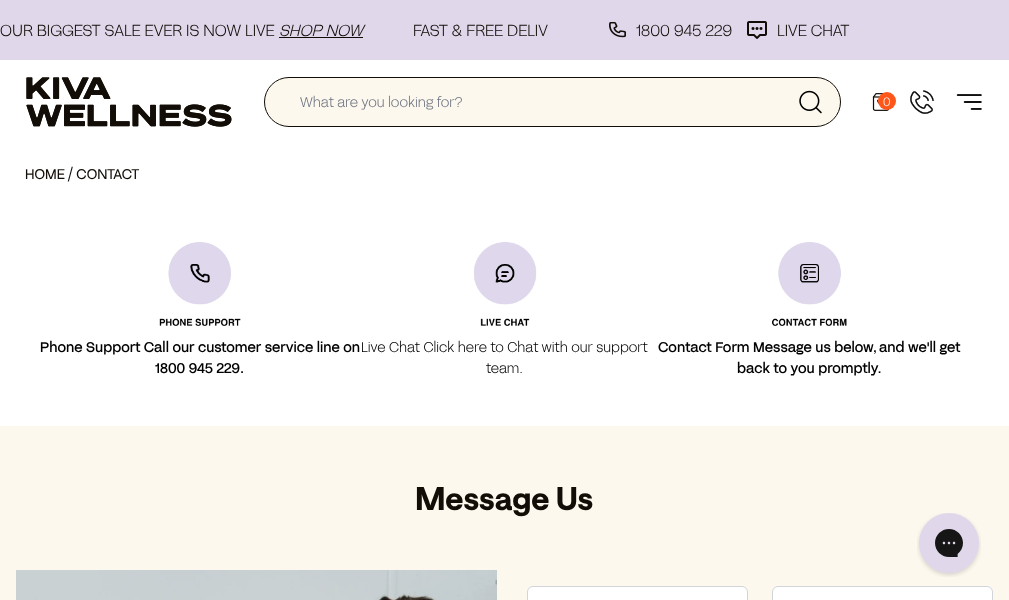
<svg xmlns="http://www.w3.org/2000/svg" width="1009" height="600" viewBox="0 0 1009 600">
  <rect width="100%" height="100%" fill="rgb(255,255,255)"/>
  <rect x="0" y="0" width="1009" height="60" fill="rgb(224,215,235)"/>
  <text x="0" y="36" font-family="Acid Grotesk" font-size="16" fill="rgb(18,13,7)">OUR BIGGEST SALE EVER IS NOW LIVE</text>
  <text x="279" y="36" font-family="Acid Grotesk" font-size="16" font-style="italic" fill="rgb(18,13,7)">SHOP NOW</text>
  <rect x="279" y="37" width="84" height="1" fill="rgb(18,13,7)"/>
  <text x="413" y="36" font-family="Acid Grotesk" font-size="16" fill="rgb(18,13,7)">FAST &amp; FREE DELIV</text>
  <image x="609" y="22" width="17" height="16" href="pic1.png"/>
  <text x="636" y="36" font-family="Acid Grotesk" font-size="16" fill="rgb(18,13,7)">1800 945 229</text>
  <image x="747" y="21" width="20" height="18" href="pic2.png"/>
  <text x="777" y="36" font-family="Acid Grotesk" font-size="16" fill="rgb(18,13,7)">LIVE CHAT</text>
  <image x="26" y="77" width="206" height="50" href="pic3.png"/>
  <rect x="264.5" y="77.5" width="576" height="49" rx="24.5" fill="rgb(253,248,238)" stroke="rgb(18,13,7)"/>
  <text x="300" y="107" font-family="Acid Grotesk" font-size="14" fill="rgb(107,114,128)">What are you looking for?</text>
  <image x="799" y="90" width="23" height="24" href="pic4.png"/>
  <image x="872" y="93" width="17" height="18" href="pic5.png"/>
  <circle cx="887" cy="101" r="9" fill="rgb(255,86,25)"/>
  <text x="883" y="106" font-family="Acid Grotesk" font-size="12" fill="rgb(255,255,255)">0</text>
  <image x="910" y="90" width="24" height="24" href="pic6.png"/>
  <image x="956" y="94" width="26" height="16" href="pic7.png"/>
  <text x="25" y="179" font-family="Acid Grotesk" font-size="14" font-weight="500" fill="rgb(18,13,7)">HOME / CONTACT</text>
  <image x="159" y="242" width="82" height="84" href="pic8.png"/>
  <g font-family="Acid Grotesk" font-size="14" font-weight="bold" fill="rgb(0,0,0)">
    <text x="40" y="352">Phone Support Call our customer service line on</text>
    <text x="155" y="373">1800 945 229.</text>
  </g>
  <image x="474" y="242" width="63" height="84" href="pic9.png"/>
  <g font-family="Acid Grotesk" font-size="14" fill="rgb(0,0,0)">
    <text x="361" y="352">Live Chat Click here to Chat with our support</text>
    <text x="486" y="373">team.</text>
  </g>
  <image x="772" y="242" width="75" height="84" href="pic10.png"/>
  <g font-family="Acid Grotesk" font-size="14" font-weight="bold" fill="rgb(0,0,0)">
    <text x="658" y="352">Contact Form Message us below, and we'll get</text>
    <text x="737" y="373">back to you promptly.</text>
  </g>
  <rect x="0" y="426" width="1009" height="174" fill="rgb(253,248,238)"/>
  <text x="415" y="510" font-family="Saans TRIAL" font-size="32" font-weight="bold" fill="rgb(18,13,7)">Message Us</text>
  <image x="16" y="570" width="481" height="30" href="pic11.png"/>
  <rect x="527.5" y="586.5" width="220" height="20" rx="5.5" fill="rgb(255,255,255)" stroke="rgb(209,213,219)"/>
  <rect x="772.5" y="586.5" width="220" height="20" rx="5.5" fill="rgb(255,255,255)" stroke="rgb(209,213,219)"/>
  <image x="917" y="513" width="64" height="64" href="pic12.png"/>
</svg>
